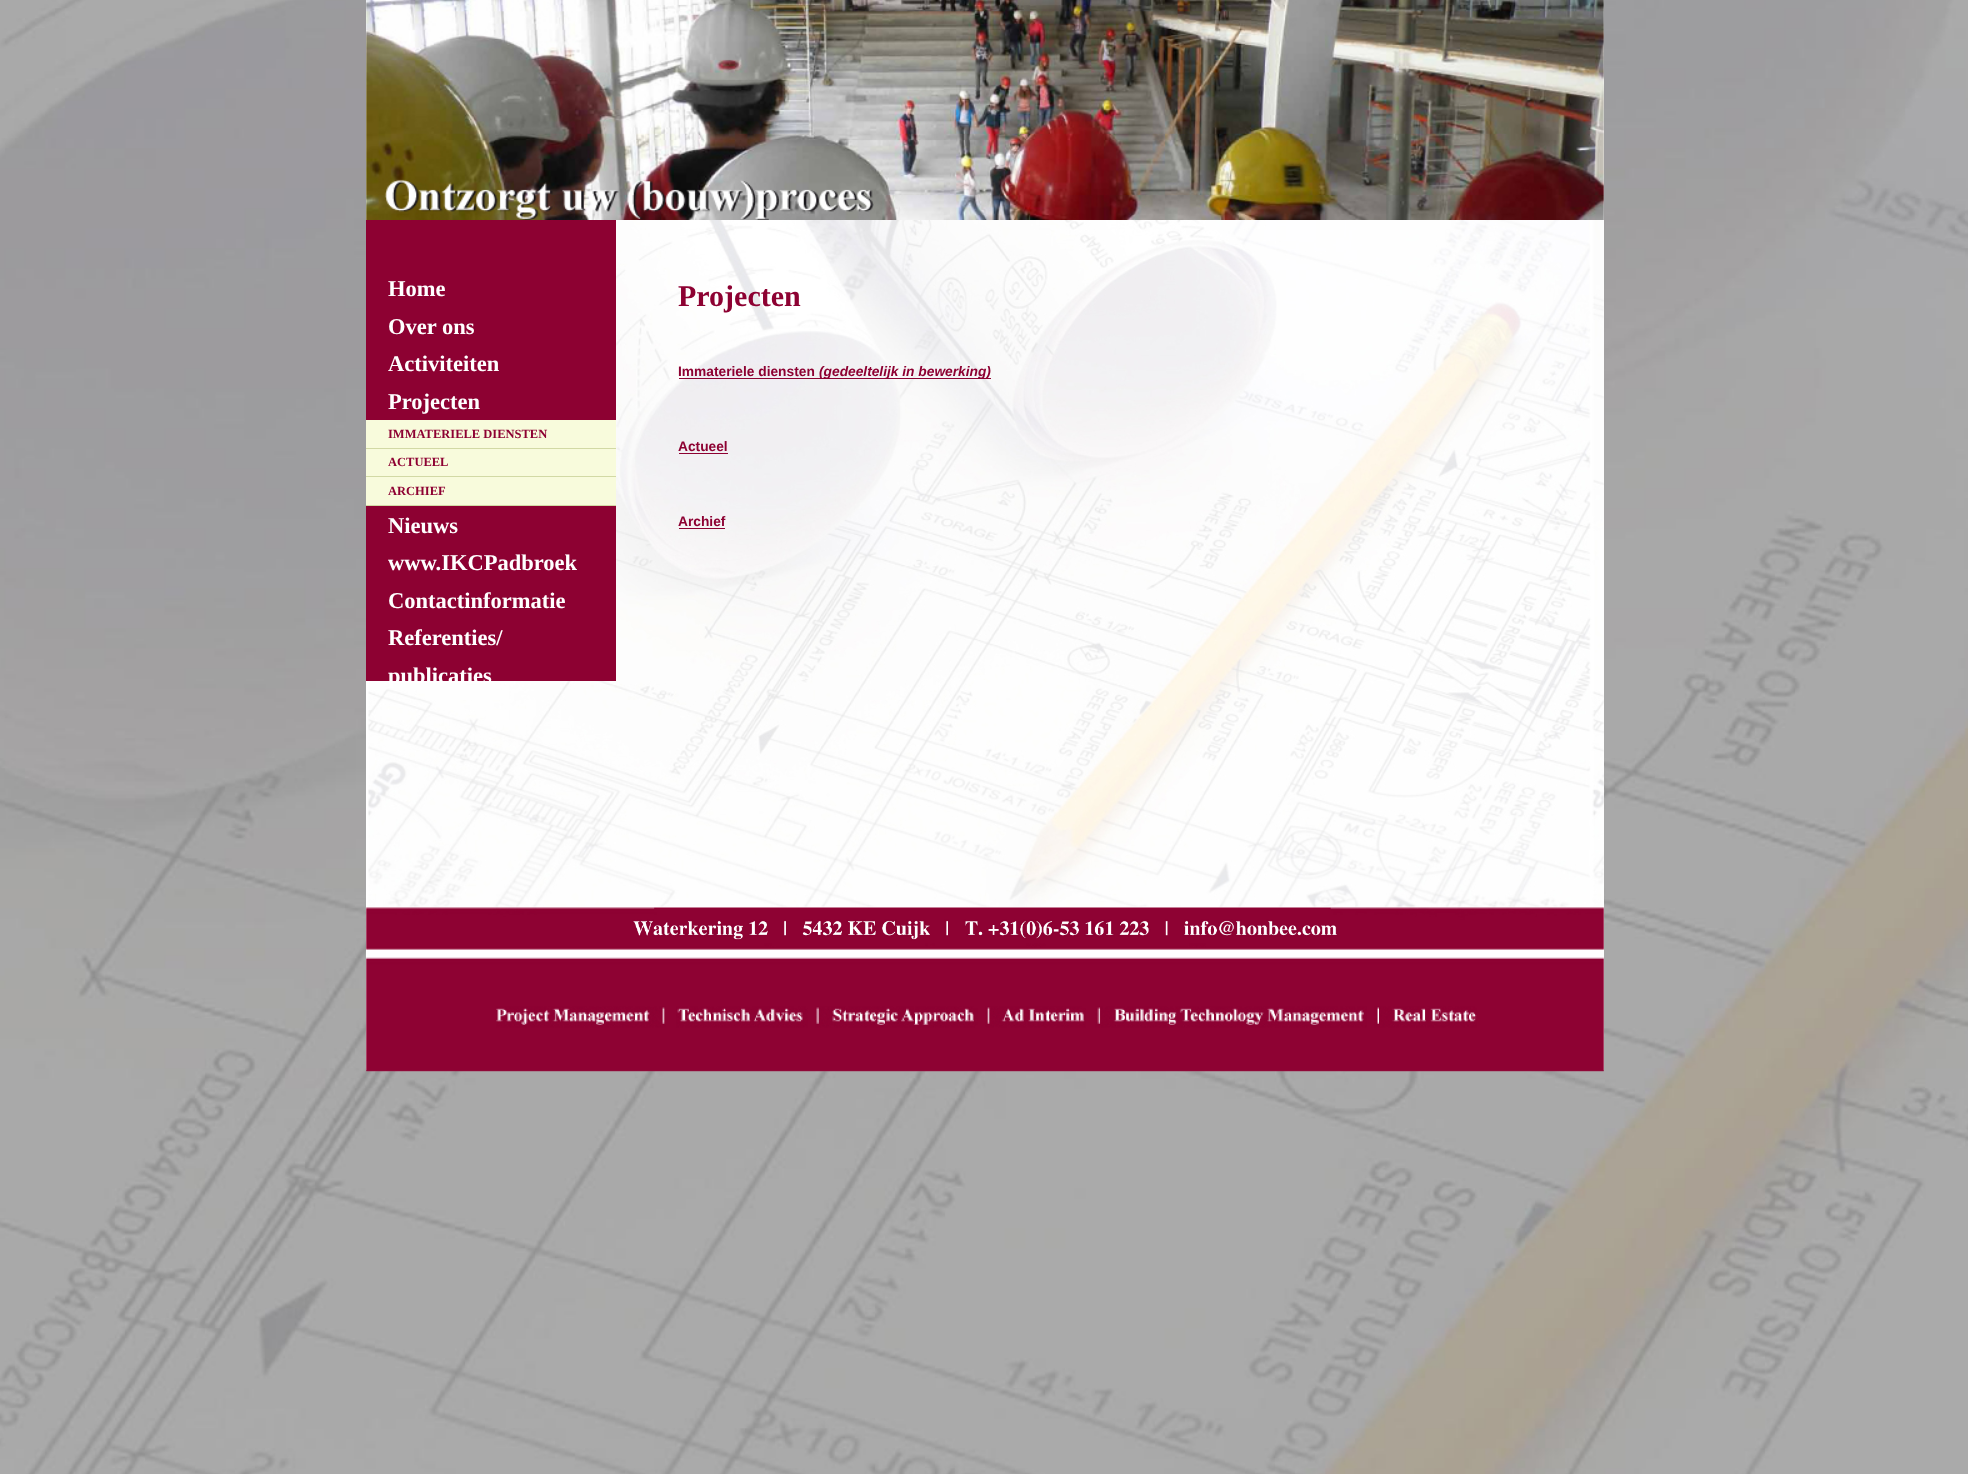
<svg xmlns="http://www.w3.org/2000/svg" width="1968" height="1474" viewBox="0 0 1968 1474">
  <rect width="100%" height="100%" fill="rgb(255,255,255)"/>
  <image x="0" y="0" width="1968" height="1474" href="pic1.png"/>
  <rect x="366" y="0" width="1238" height="1070" fill="rgb(255,255,255)"/>
  <image x="368" y="213" width="1236" height="695" href="pic2.png"/>
  <image x="366" y="0" width="1238" height="220" href="pic3.png"/>
  <rect x="366" y="220" width="250" height="461" fill="rgb(141,1,50)"/>
  <g font-family="Liberation Serif" font-size="22.5" font-weight="bold" fill="rgb(255,255,255)">
    <text>
      <tspan x="388" y="296">Home</tspan>
      <tspan x="388" y="334">Over ons</tspan>
      <tspan x="388" y="371">Activiteiten</tspan>
      <tspan x="388" y="409">Projecten</tspan>
    </text>
  </g>
  <rect x="366" y="420" width="250" height="28" fill="rgb(248,251,220)"/>
  <rect x="366" y="448" width="250" height="1" fill="rgb(210,217,165)"/>
  <text x="388" y="438" font-family="Liberation Serif" font-size="12.5" font-weight="bold" fill="rgb(141,1,50)">IMMATERIELE DIENSTEN</text>
  <rect x="366" y="449" width="250" height="56" fill="rgb(248,251,220)"/>
  <rect x="366" y="476" width="250" height="1" fill="rgb(210,217,165)"/>
  <text x="388" y="466" font-family="Liberation Serif" font-size="12.5" font-weight="bold" fill="rgb(141,1,50)">ACTUEEL</text>
  <rect x="366" y="505" width="250" height="1" fill="rgb(210,217,165)"/>
  <text x="388" y="495" font-family="Liberation Serif" font-size="12.5" font-weight="bold" fill="rgb(141,1,50)">ARCHIEF</text>
  <g font-family="Liberation Serif" font-size="22.5" font-weight="bold" fill="rgb(255,255,255)">
    <text>
      <tspan x="388" y="533">Nieuws</tspan>
      <tspan x="388" y="570">www.IKCPadbroek</tspan>
      <tspan x="388" y="608">Contactinformatie</tspan>
      <tspan x="388" y="645">Referenties/</tspan>
      <tspan x="388" y="683">publicaties</tspan>
    </text>
  </g>
  <text x="678" y="306" font-family="Liberation Serif" font-size="30" font-weight="bold" fill="rgb(141,1,50)">Projecten</text>
  <text x="678" y="376" font-family="Liberation Sans" font-size="13.75" font-weight="bold" fill="rgb(141,1,50)">Immateriele diensten</text>
  <rect x="679" y="378" width="312" height="1" fill="rgb(141,1,50)"/>
  <text x="819" y="376" font-family="Liberation Sans" font-size="13.75" font-weight="bold" font-style="italic" fill="rgb(141,1,50)">(gedeeltelijk in bewerking)</text>
  <text x="678" y="451" font-family="Liberation Sans" font-size="13.75" font-weight="bold" fill="rgb(141,1,50)">Actueel</text>
  <rect x="679" y="453" width="49" height="1" fill="rgb(141,1,50)"/>
  <text x="678" y="526" font-family="Liberation Sans" font-size="13.75" font-weight="bold" fill="rgb(141,1,50)">Archief</text>
  <rect x="679" y="528" width="46" height="1" fill="rgb(141,1,50)"/>
  <image x="366" y="907" width="1238" height="165" href="pic4.png"/>
</svg>
